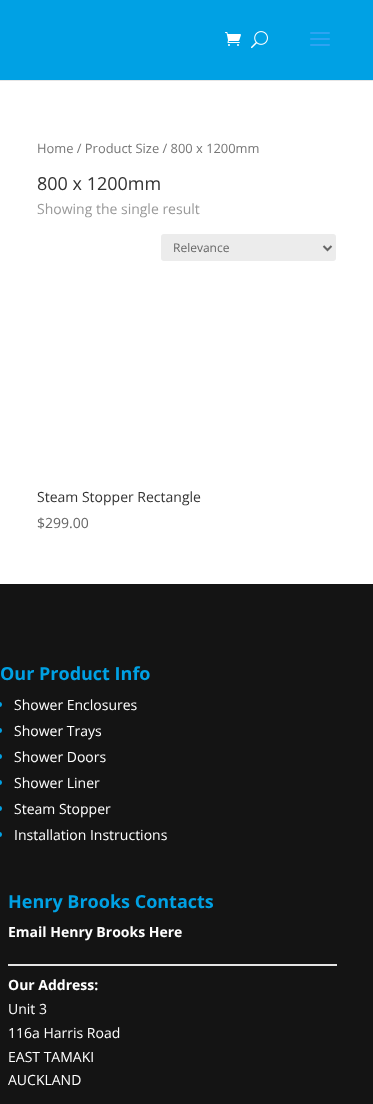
<svg xmlns="http://www.w3.org/2000/svg" width="373" height="1104" viewBox="0 0 373 1104">
  <rect width="100%" height="100%" fill="rgb(255,255,255)"/>
  <rect x="0" y="80" width="373" height="1" fill="rgb(230,230,230)"/>
  <rect x="0" y="0" width="373" height="80" fill="rgb(0,161,228)"/>
  <image x="225" y="32" width="16" height="14" href="pic1.png"/>
  <image x="251" y="31" width="17" height="18" href="pic2.png"/>
  <image x="310" y="32" width="20" height="14" href="pic3.png"/>
  <text x="37" y="153" font-family="Open Sans" font-size="12.9" fill="rgb(118,118,118)">Home / Product Size / 800 x 1200mm</text>
  <text x="37" y="190" font-family="Open Sans" font-size="18" fill="rgb(51,51,51)">800 x 1200mm</text>
  <text x="37" y="214" font-family="Open Sans" font-size="14" fill="rgb(153,153,153)">Showing the single result</text>
  <rect x="161" y="234" width="175" height="27" rx="3" fill="rgb(236,236,236)"/>
  <path d="M323.5 246L327.5 250L331.5 246" fill="none" stroke="rgb(102,102,102)" stroke-width="2"/>
  <text x="173" y="252" font-family="Open Sans" font-size="12" fill="rgb(102,102,102)">Relevance</text>
  <text x="37" y="502" font-family="Open Sans" font-size="14" fill="rgb(51,51,51)">Steam Stopper Rectangle</text>
  <text x="37" y="528" font-family="Open Sans" font-size="14" fill="rgb(102,102,102)">$299.00</text>
  <rect x="0" y="584" width="373" height="520" fill="rgb(20,20,20)"/>
  <text x="0" y="680" font-family="Open Sans" font-size="18" font-weight="bold" fill="rgb(0,161,228)">Our Product Info</text>
  <circle cx="-0.5" cy="704.5" r="2.5" fill="rgb(0,161,228)"/>
  <text x="14" y="710" font-family="Open Sans" font-size="14" fill="rgb(255,255,255)">Shower Enclosures</text>
  <circle cx="-0.5" cy="730.5" r="2.5" fill="rgb(0,161,228)"/>
  <text x="14" y="736" font-family="Open Sans" font-size="14" fill="rgb(255,255,255)">Shower Trays</text>
  <circle cx="-0.5" cy="756.5" r="2.5" fill="rgb(0,161,228)"/>
  <text x="14" y="762" font-family="Open Sans" font-size="14" fill="rgb(255,255,255)">Shower Doors</text>
  <circle cx="-0.5" cy="782.5" r="2.5" fill="rgb(0,161,228)"/>
  <text x="14" y="788" font-family="Open Sans" font-size="14" fill="rgb(255,255,255)">Shower Liner</text>
  <circle cx="-0.5" cy="808.5" r="2.5" fill="rgb(0,161,228)"/>
  <text x="14" y="814" font-family="Open Sans" font-size="14" fill="rgb(255,255,255)">Steam Stopper</text>
  <circle cx="-0.5" cy="834.5" r="2.5" fill="rgb(0,161,228)"/>
  <text x="14" y="840" font-family="Open Sans" font-size="14" fill="rgb(255,255,255)">Installation Instructions</text>
  <text x="8" y="908" font-family="Open Sans" font-size="18" font-weight="bold" fill="rgb(0,161,228)">Henry Brooks Contacts</text>
  <text x="8" y="937" font-family="Open Sans" font-size="14" font-weight="bold" fill="rgb(255,255,255)">Email Henry Brooks Here</text>
  <rect x="8" y="964" width="329" height="2" fill="rgb(228,228,228)"/>
  <text x="8" y="990" font-family="Open Sans" font-size="14" font-weight="bold" fill="rgb(255,255,255)">Our Address:</text>
  <g font-family="Open Sans" font-size="14" fill="rgb(255,255,255)">
    <text>
      <tspan x="8" y="1014">Unit 3</tspan>
      <tspan x="8" y="1038">116a Harris Road</tspan>
      <tspan x="8" y="1062">EAST TAMAKI</tspan>
      <tspan x="8" y="1085">AUCKLAND</tspan>
    </text>
  </g>
</svg>
